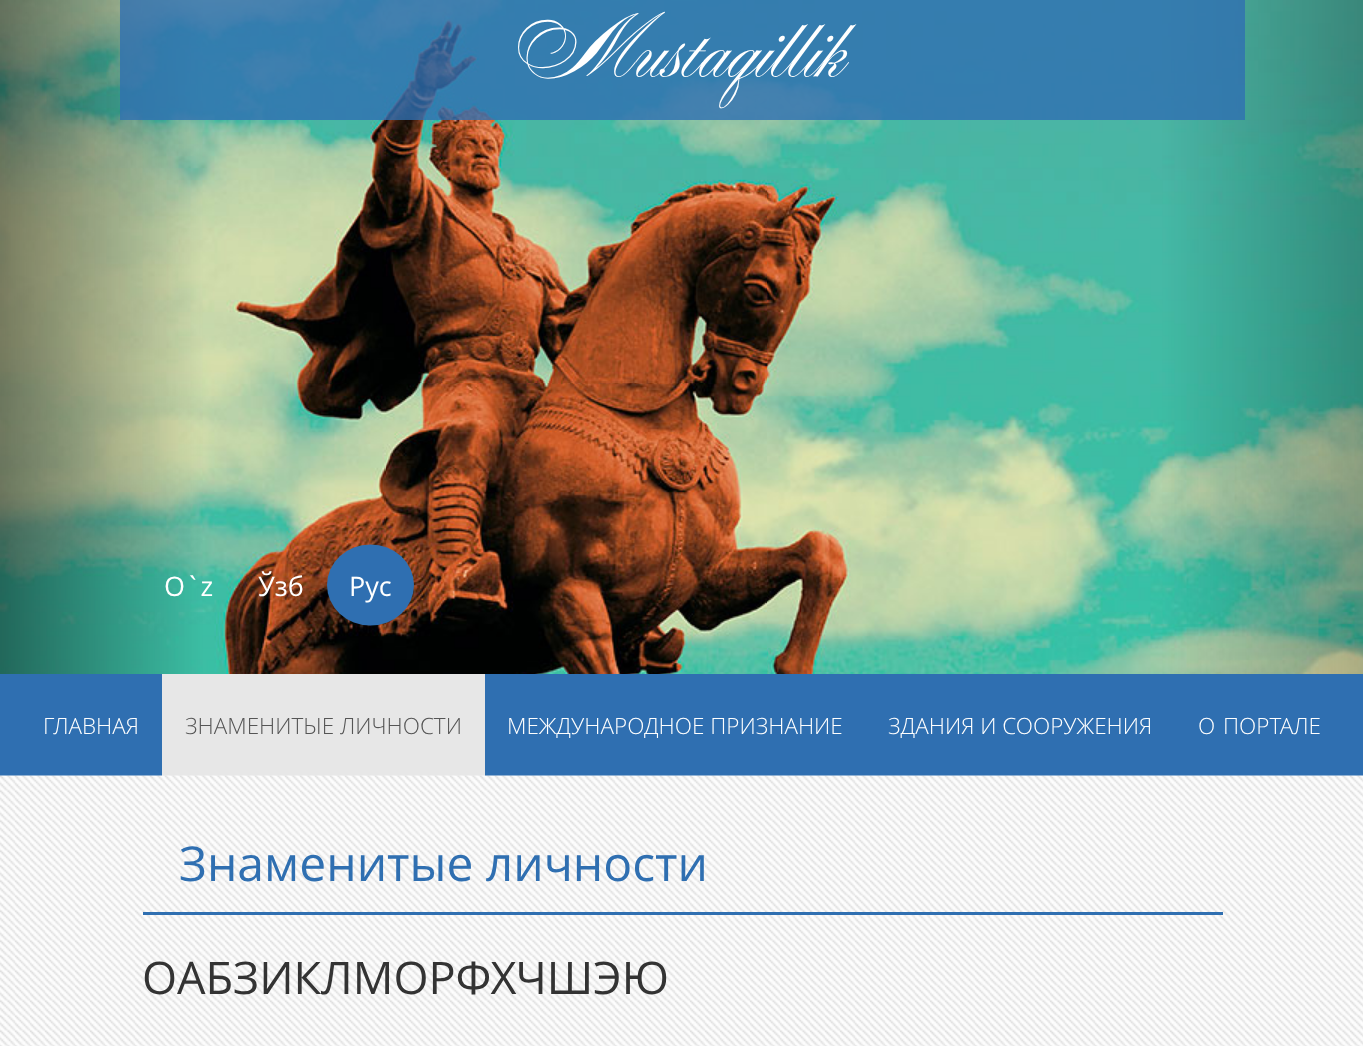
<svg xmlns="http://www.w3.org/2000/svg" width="1363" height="1046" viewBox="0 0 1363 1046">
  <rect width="100%" height="100%" fill="rgb(255,255,255)"/>
  <image x="0" y="0" width="1363" height="674" href="pic1.png"/>
  <rect x="120" y="0" width="1125" height="120" fill="rgba(47,111,177,0.8)"/>
  <text x="518" y="77" font-family="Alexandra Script" font-size="120" fill="rgb(255,255,255)">Mustaqillik</text>
  <g font-family="Open Sans" font-size="27" fill="rgb(255,255,255)">
    <text x="164" y="596">O`z</text>
    <text x="258" y="596">Ўзб</text>
  </g>
  <ellipse cx="370.5" cy="585" rx="43.5" ry="40.5" fill="rgb(47,111,177)"/>
  <text x="349" y="596" font-family="Open Sans" font-size="27" fill="rgb(255,255,255)">Рус</text>
  <rect x="0" y="674" width="1363" height="102" fill="rgb(47,111,177)"/>
  <text x="43" y="734" font-family="Open Sans" font-size="22.5" font-weight="300" fill="rgb(255,255,255)">ГЛАВНАЯ</text>
  <rect x="162" y="674" width="323" height="102" fill="rgb(231,231,231)"/>
  <text x="185" y="734" font-family="Open Sans" font-size="22.5" font-weight="300" fill="rgb(85,85,85)">ЗНАМЕНИТЫЕ ЛИЧНОСТИ</text>
  <g font-family="Open Sans" font-size="22.5" font-weight="300" fill="rgb(255,255,255)">
    <text x="507" y="734">МЕЖДУНАРОДНОЕ ПРИЗНАНИЕ</text>
    <text x="888" y="734">ЗДАНИЯ И СООРУЖЕНИЯ</text>
    <text x="1198" y="734" word-spacing="2">О ПОРТАЛЕ</text>
  </g>
  <image x="0" y="775" width="1363" height="271" href="pic2.png"/>
  <rect x="143" y="912" width="1080" height="3" fill="rgb(47,111,177)"/>
  <text x="179" y="881" font-family="Open Sans" font-size="48" fill="rgb(47,111,177)">Знаменитые личности</text>
  <text x="142" y="994" font-family="Open Sans" font-size="45" fill="rgb(51,51,51)">OАБЗИКЛМОРФХЧШЭЮ</text>
</svg>
